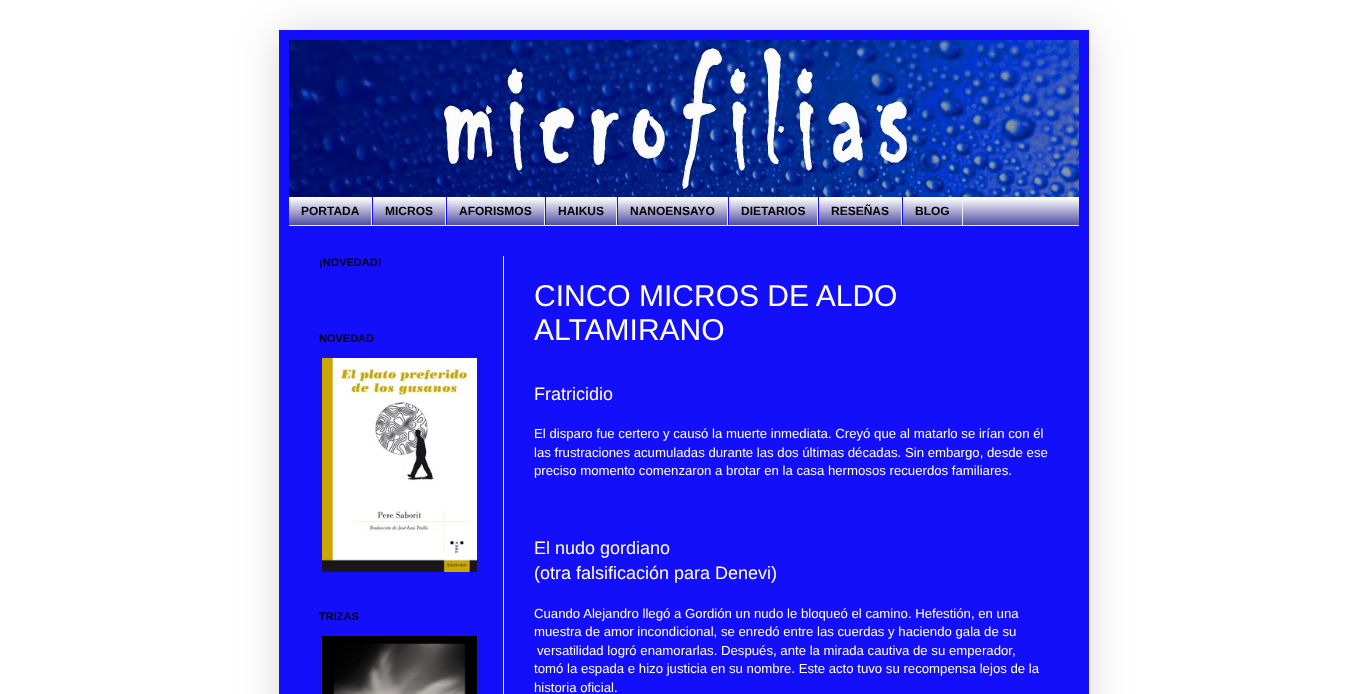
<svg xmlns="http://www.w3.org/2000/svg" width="1367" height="694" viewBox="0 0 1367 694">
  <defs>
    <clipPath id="clip1"><path d="M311 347H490V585H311ZM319 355H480V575H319Z" clip-rule="evenodd"/></clipPath>
    <clipPath id="clip2"><path d="M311 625H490V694H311ZM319 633H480V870H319Z" clip-rule="evenodd"/></clipPath>
  </defs>
  <rect width="100%" height="100%" fill="rgb(255,255,255)"/>
  <rect x="279" y="30" width="810" height="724" fill="rgba(0,0,0,0.15)" filter="blur(20px)"/>
  <rect x="279" y="30" width="810" height="664" fill="rgb(20,15,251)"/>
  <image x="289" y="40" width="790" height="157" href="pic1.png"/>
  <rect x="289" y="198" width="790" height="27" fill="rgb(10,7,125)"/>
  <image x="289" y="197" width="790" height="28" href="pic2.png"/>
  <rect x="289" y="225" width="790" height="1" fill="rgb(238,238,238)"/>
  <rect x="371" y="197" width="1" height="28" fill="rgb(238,238,238)"/>
  <text x="301" y="215" font-family="Liberation Sans" font-size="12" font-weight="bold" fill="rgb(0,0,0)">PORTADA</text>
  <rect x="445" y="197" width="1" height="28" fill="rgb(238,238,238)"/>
  <rect x="372" y="197" width="1" height="28" fill="rgb(20,15,251)"/>
  <text x="385" y="215" font-family="Liberation Sans" font-size="12" font-weight="bold" fill="rgb(0,0,0)">MICROS</text>
  <rect x="544" y="197" width="1" height="28" fill="rgb(238,238,238)"/>
  <rect x="446" y="197" width="1" height="28" fill="rgb(20,15,251)"/>
  <text x="459" y="215" font-family="Liberation Sans" font-size="12" font-weight="bold" fill="rgb(0,0,0)">AFORISMOS</text>
  <rect x="616" y="197" width="1" height="28" fill="rgb(238,238,238)"/>
  <rect x="545" y="197" width="1" height="28" fill="rgb(20,15,251)"/>
  <text x="558" y="215" font-family="Liberation Sans" font-size="12" font-weight="bold" fill="rgb(0,0,0)">HAIKUS</text>
  <rect x="727" y="197" width="1" height="28" fill="rgb(238,238,238)"/>
  <rect x="617" y="197" width="1" height="28" fill="rgb(20,15,251)"/>
  <text x="630" y="215" font-family="Liberation Sans" font-size="12" font-weight="bold" fill="rgb(0,0,0)">NANOENSAYO</text>
  <rect x="817" y="197" width="1" height="28" fill="rgb(238,238,238)"/>
  <rect x="728" y="197" width="1" height="28" fill="rgb(20,15,251)"/>
  <text x="741" y="215" font-family="Liberation Sans" font-size="12" font-weight="bold" fill="rgb(0,0,0)">DIETARIOS</text>
  <rect x="901" y="197" width="1" height="28" fill="rgb(238,238,238)"/>
  <rect x="818" y="197" width="1" height="28" fill="rgb(20,15,251)"/>
  <text x="831" y="215" font-family="Liberation Sans" font-size="12" font-weight="bold" fill="rgb(0,0,0)">RESEÑAS</text>
  <rect x="962" y="197" width="1" height="28" fill="rgb(238,238,238)"/>
  <rect x="902" y="197" width="1" height="28" fill="rgb(20,15,251)"/>
  <text x="915" y="215" font-family="Liberation Sans" font-size="12" font-weight="bold" fill="rgb(0,0,0)">BLOG</text>
  <rect x="503" y="256" width="1" height="438" fill="rgb(238,238,238)"/>
  <g font-family="Liberation Sans" font-size="11" font-weight="bold" fill="rgb(0,0,0)">
    <text x="319" y="266">¡NOVEDAD!</text>
    <text x="319" y="342">NOVEDAD</text>
  </g>
  <g clip-path="url(#clip1)">
    <rect x="320" y="356" width="161" height="220" fill="rgba(0,0,0,0.1)" filter="blur(2.5px)"/>
  </g>
  <image x="322" y="358" width="155" height="214" href="pic3.png"/>
  <text x="319" y="620" font-family="Liberation Sans" font-size="11" font-weight="bold" fill="rgb(0,0,0)">TRIZAS</text>
  <g clip-path="url(#clip2)">
    <rect x="320" y="634" width="161" height="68" fill="rgba(0,0,0,0.1)" filter="blur(2.5px)"/>
  </g>
  <image x="322" y="636" width="155" height="58" href="pic4.png"/>
  <g font-family="Liberation Sans" font-size="30" fill="rgb(255,255,255)">
    <text>
      <tspan x="534" y="306">CINCO MICROS DE ALDO</tspan>
      <tspan x="534" y="340">ALTAMIRANO</tspan>
    </text>
  </g>
  <text x="534" y="400" font-family="Liberation Sans" font-size="18" fill="rgb(255,255,255)">Fratricidio</text>
  <g font-family="Liberation Sans" font-size="13.2" fill="rgb(255,255,255)">
    <text>
      <tspan x="534" y="438">El disparo fue certero y causó la muerte inmediata. Creyó que al matarlo se irían con él</tspan>
      <tspan x="534" y="457">las frustraciones acumuladas durante las dos últimas décadas. Sin embargo, desde ese</tspan>
      <tspan x="534" y="475">preciso momento comenzaron a brotar en la casa hermosos recuerdos familiares.</tspan>
    </text>
  </g>
  <g font-family="Liberation Sans" font-size="18" fill="rgb(255,255,255)">
    <text>
      <tspan x="534" y="554">El nudo gordiano</tspan>
      <tspan x="534" y="579">(otra falsificación para Denevi)</tspan>
    </text>
  </g>
  <g font-family="Liberation Sans" font-size="13.2" fill="rgb(255,255,255)">
    <text>
      <tspan x="534" y="618">Cuando Alejandro llegó a Gordión un nudo le bloqueó el camino. Hefestión, en una</tspan>
      <tspan x="534" y="636">muestra de amor incondicional, se enredó entre las cuerdas y haciendo gala de su</tspan>
    </text>
    <text x="537" y="655">versatilidad logró enamorarlas. Después, ante la mirada cautiva de su emperador,</text>
    <text>
      <tspan x="534" y="673">tomó la espada e hizo justicia en su nombre. Este acto tuvo su recompensa lejos de la</tspan>
      <tspan x="534" y="692">historia oficial.</tspan>
    </text>
  </g>
</svg>
